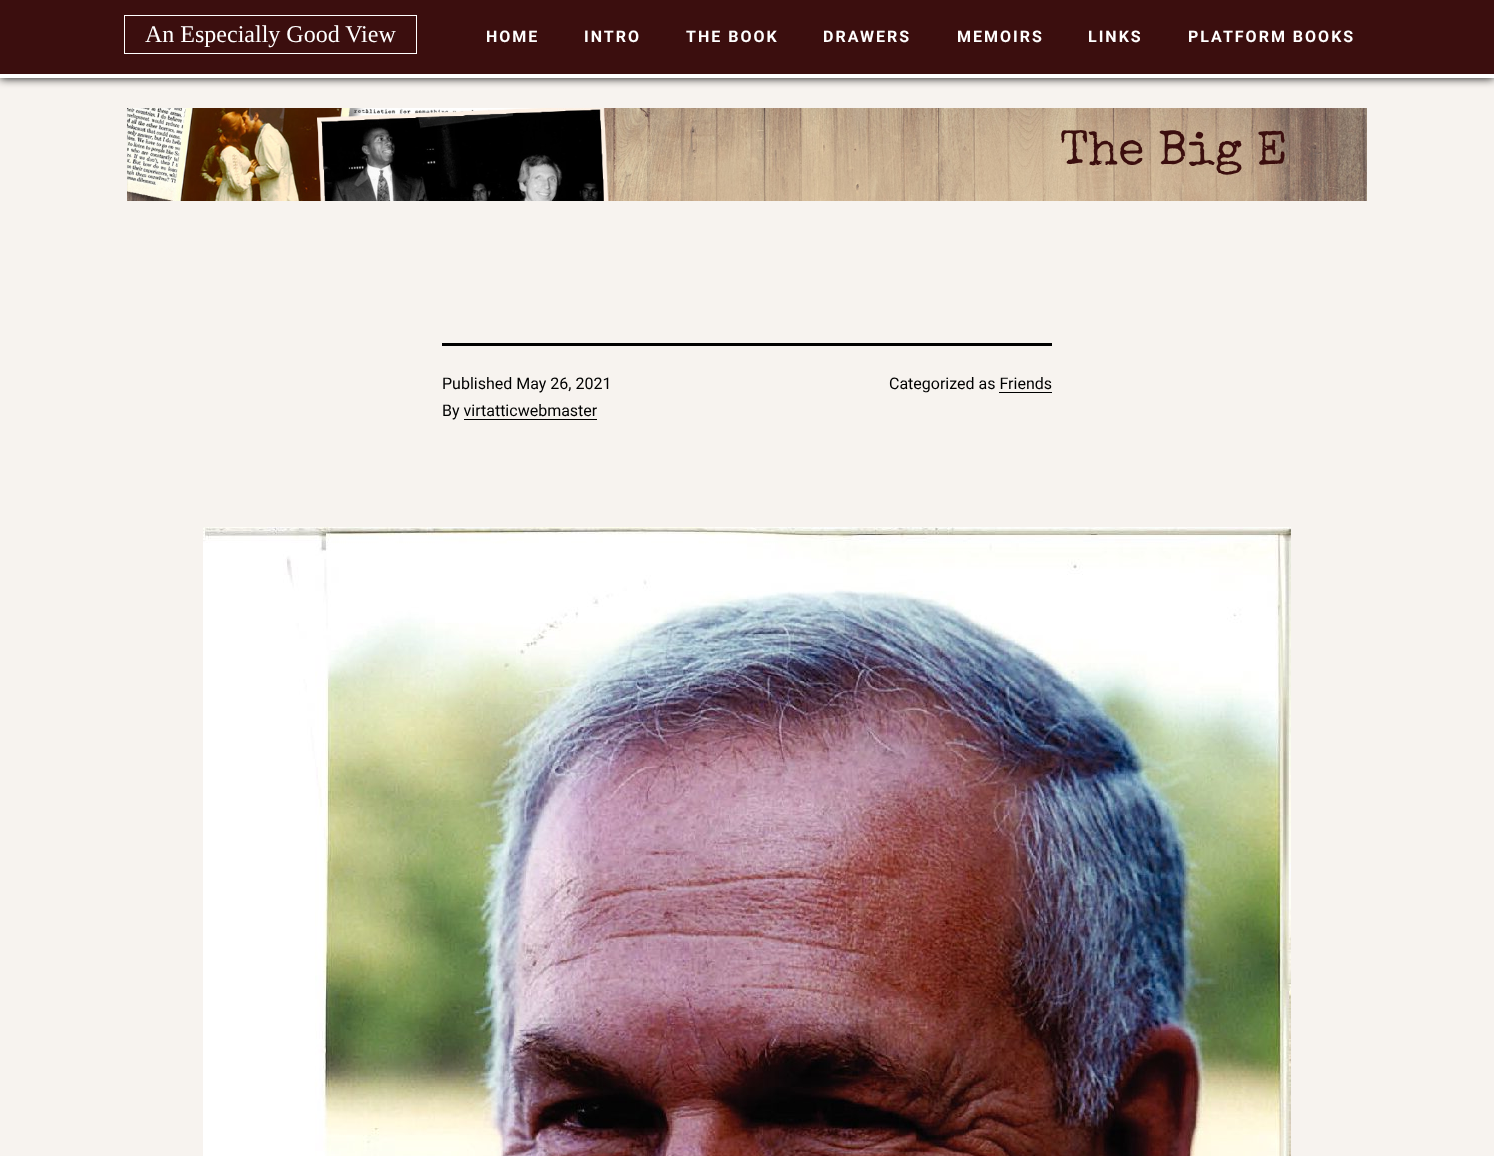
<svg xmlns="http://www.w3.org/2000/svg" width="1494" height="1156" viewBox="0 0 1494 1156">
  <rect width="100%" height="100%" fill="rgb(247,243,239)"/>
  <rect x="0" y="0" width="1494" height="78" fill="rgb(0,0,0)" filter="blur(5px)"/>
  <rect x="0" y="0" width="1494" height="74" fill="rgb(59,14,14)"/>
  <rect x="0" y="74" width="1494" height="4" fill="rgb(255,255,255)"/>
  <rect x="124.5" y="15.5" width="292" height="38" fill="none" stroke="rgb(255,255,255)"/>
  <text x="145" y="42" font-family="Liberation Serif" font-size="24" fill="rgb(255,255,255)">An Especially Good View</text>
  <g font-family="Roboto" font-size="16" font-weight="bold" letter-spacing="2" fill="rgb(255,255,255)">
    <text x="486" y="42">HOME</text>
    <text x="584" y="42">INTRO</text>
    <text x="686" y="42">THE BOOK</text>
    <text x="823" y="42">DRAWERS</text>
    <text x="957" y="42">MEMOIRS</text>
    <text x="1088" y="42">LINKS</text>
    <text x="1188" y="42">PLATFORM BOOKS</text>
  </g>
  <image x="127" y="108" width="1240" height="93" href="pic1.png"/>
  <text x="1060" y="164" font-family="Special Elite" font-size="48" fill="rgb(59,14,14)">The Big E</text>
  <rect x="442" y="343" width="610" height="3" fill="rgb(0,0,0)"/>
  <g font-family="Roboto" font-size="16" fill="rgb(0,0,0)">
    <text>
      <tspan x="442" y="389">Published May 26, 2021</tspan>
      <tspan x="442" y="416">By virtatticwebmaster</tspan>
    </text>
  </g>
  <rect x="464" y="419" width="133" height="1" fill="rgb(0,0,0)"/>
  <text x="889" y="389" font-family="Roboto" font-size="16" fill="rgb(0,0,0)">Categorized as Friends</text>
  <rect x="999" y="392" width="53" height="1" fill="rgb(0,0,0)"/>
  <image x="203" y="527" width="1088" height="629" href="pic2.png"/>
</svg>
